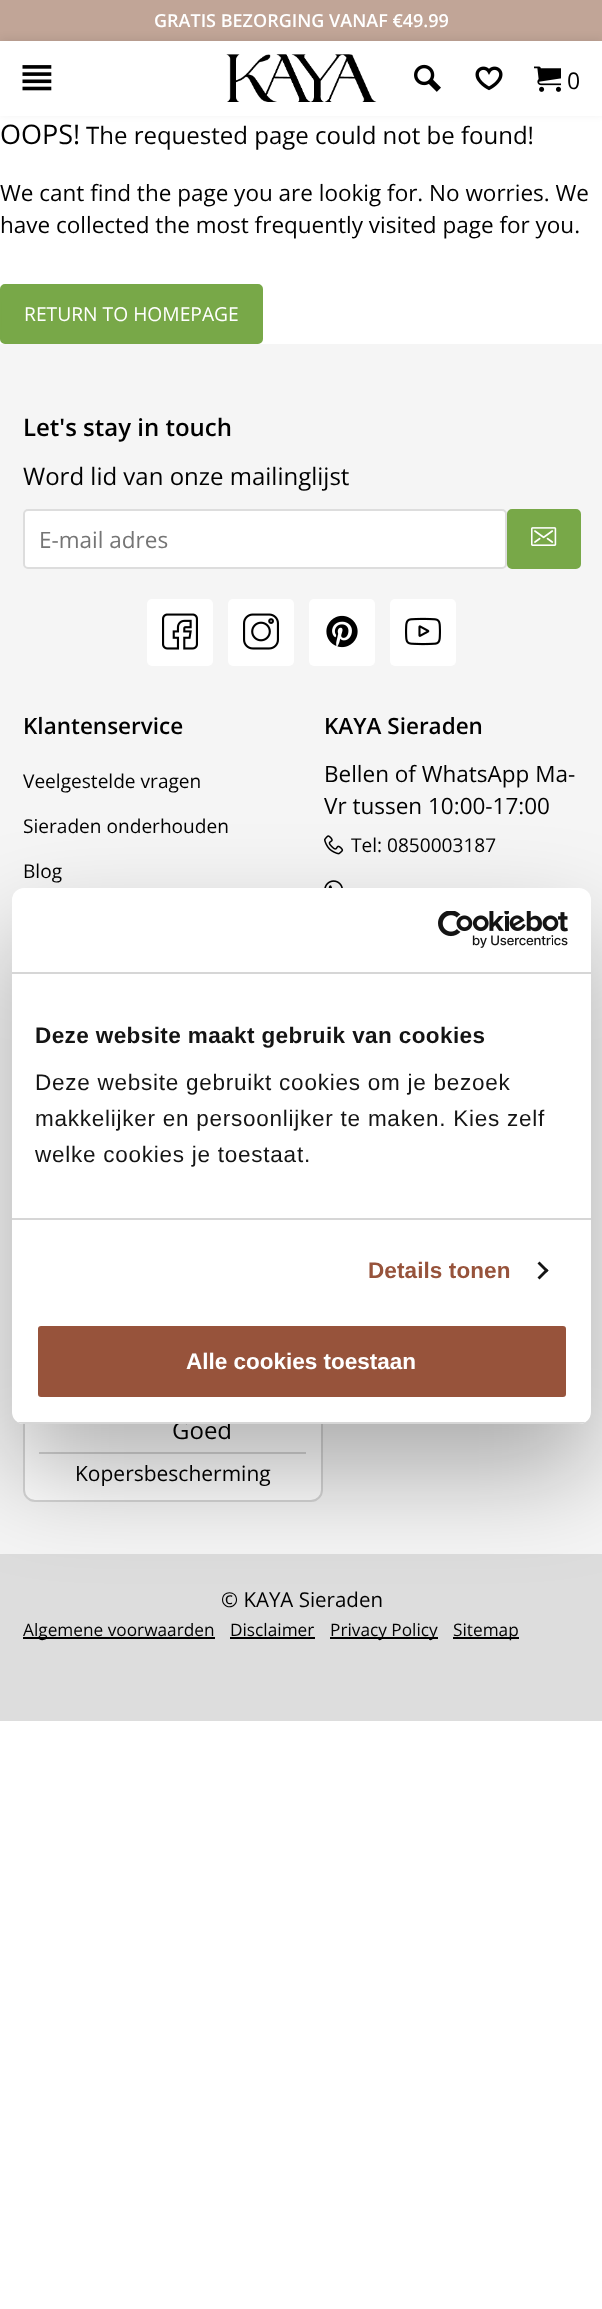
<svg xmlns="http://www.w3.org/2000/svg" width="602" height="2309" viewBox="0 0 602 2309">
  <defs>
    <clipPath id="clip1"><rect x="12" y="888" width="579" height="536" rx="12"/></clipPath>
  </defs>
  <rect width="100%" height="100%" fill="rgb(255,255,255)"/>
  <rect x="0" y="0" width="602" height="41" fill="rgb(193,165,151)"/>
  <text x="154" y="27" font-family="Open Sans" font-size="18" font-weight="600" fill="rgb(255,255,255)">GRATIS BEZORGING VANAF €49.99</text>
  <rect x="0" y="39" width="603" height="75" fill="rgba(0,0,0,0.08)" filter="blur(4px)"/>
  <rect x="0" y="41" width="602" height="75" fill="rgb(255,255,255)"/>
  <image x="22" y="65" width="30" height="26" href="pic1.png"/>
  <image x="226" y="54" width="151" height="48" href="pic2.png"/>
  <image x="414" y="64" width="27" height="28" href="pic3.png"/>
  <image x="475" y="66" width="28" height="25" href="pic4.png"/>
  <image x="534" y="66" width="27" height="26" href="pic5.png"/>
  <text x="567" y="89" font-family="Open Sans" font-size="23" fill="rgb(0,0,0)">0</text>
  <text x="0" y="144" font-family="Open Sans" font-size="27" fill="rgb(0,0,0)">OOPS!</text>
  <text x="86" y="144" font-family="Open Sans" font-size="24" fill="rgb(0,0,0)">The requested page could not be found!</text>
  <g font-family="Open Sans" font-size="22.5" fill="rgb(0,0,0)">
    <text>
      <tspan x="0" y="201">We cant find the page you are lookig for. No worries. We</tspan>
      <tspan x="0" y="233">have collected the most frequently visited page for you.</tspan>
    </text>
  </g>
  <rect x="1" y="285" width="261" height="58" rx="4" fill="rgb(120,168,72)" stroke="rgb(120,168,72)" stroke-width="2"/>
  <text x="24" y="321" font-family="Open Sans" font-size="19.25" fill="rgb(255,255,255)">RETURN TO HOMEPAGE</text>
  <rect x="0" y="344" width="602" height="1210" fill="rgb(245,245,245)"/>
  <text x="23" y="436" font-family="Open Sans" font-size="24" font-weight="600" fill="rgb(0,0,0)">Let's stay in touch</text>
  <text x="23" y="485" font-family="Open Sans" font-size="24" fill="rgb(0,0,0)">Word lid van onze mailinglijst</text>
  <rect x="24" y="510" width="482" height="58" rx="4" fill="rgb(255,255,255)" stroke="rgb(221,221,221)" stroke-width="2"/>
  <text x="39" y="548" font-family="Open Sans" font-size="22.5" fill="rgb(117,117,117)">E-mail adres</text>
  <rect x="508" y="510" width="72" height="58" rx="4" fill="rgb(120,168,72)" stroke="rgb(120,168,72)" stroke-width="2"/>
  <image x="531" y="527" width="26" height="19" href="pic6.png"/>
  <rect x="147" y="599" width="66" height="67" rx="5" fill="rgb(255,255,255)"/>
  <image x="162" y="613" width="36" height="37" href="pic7.png"/>
  <rect x="228" y="599" width="66" height="67" rx="5" fill="rgb(255,255,255)"/>
  <image x="243" y="613" width="36" height="37" href="pic8.png"/>
  <rect x="309" y="599" width="66" height="67" rx="5" fill="rgb(255,255,255)"/>
  <image x="326" y="615" width="32" height="33" href="pic9.png"/>
  <rect x="390" y="599" width="66" height="67" rx="5" fill="rgb(255,255,255)"/>
  <image x="405" y="617" width="36" height="29" href="pic10.png"/>
  <text x="23" y="734" font-family="Open Sans" font-size="22.5" font-weight="600" fill="rgb(0,0,0)">Klantenservice</text>
  <g font-family="Open Sans" font-size="19.1" fill="rgb(0,0,0)">
    <text x="23" y="788">Veelgestelde vragen</text>
    <text x="23" y="833">Sieraden onderhouden</text>
    <text x="23" y="878">Blog</text>
  </g>
  <text x="324" y="734" font-family="Open Sans" font-size="22.5" font-weight="600" fill="rgb(0,0,0)">KAYA Sieraden</text>
  <g font-family="Open Sans" font-size="22.5" fill="rgb(0,0,0)">
    <text>
      <tspan x="324" y="782">Bellen of WhatsApp Ma-</tspan>
      <tspan x="324" y="814">Vr tussen 10:00-17:00</tspan>
    </text>
  </g>
  <image x="324" y="835" width="20" height="20" href="pic11.png"/>
  <text x="351" y="852" font-family="Open Sans" font-size="19.1" fill="rgb(0,0,0)">Tel: 0850003187</text>
  <image x="324" y="880" width="19" height="8" href="pic12.png"/>
  <rect x="24" y="1335" width="298" height="166" rx="11" fill="rgb(255,255,255)" stroke="rgb(214,214,214)" stroke-width="2"/>
  <text x="172" y="1439" font-family="Open Sans" font-size="24" fill="rgb(0,0,0)">Goed</text>
  <rect x="39" y="1452" width="267" height="2" fill="rgb(214,214,214)"/>
  <text x="75" y="1481" font-family="Open Sans" font-size="21" fill="rgb(0,0,0)">Kopersbescherming</text>
  <rect x="0" y="1554" width="602" height="167" fill="rgb(221,221,221)"/>
  <text x="221" y="1607" font-family="Open Sans" font-size="20.5" fill="rgb(0,0,0)">© KAYA Sieraden</text>
  <rect x="23" y="1637" width="192" height="2" fill="rgb(0,0,0)"/>
  <g font-family="Open Sans" font-size="17.25" fill="rgb(0,0,0)">
    <text x="23" y="1636">Algemene voorwaarden</text>
    <text x="230" y="1636">Disclaimer</text>
  </g>
  <rect x="230" y="1637" width="85" height="2" fill="rgb(0,0,0)"/>
  <rect x="330" y="1637" width="108" height="2" fill="rgb(0,0,0)"/>
  <text x="330" y="1636" font-family="Open Sans" font-size="17.25" fill="rgb(0,0,0)">Privacy Policy</text>
  <rect x="453" y="1637" width="66" height="2" fill="rgb(0,0,0)"/>
  <text x="453" y="1636" font-family="Open Sans" font-size="17.25" fill="rgb(0,0,0)">Sitemap</text>
  <rect x="12" y="936" width="579" height="536" rx="12" fill="rgba(0,0,0,0.3)" filter="blur(51px)"/>
  <rect x="12" y="888" width="579" height="536" rx="12" fill="rgb(255,255,255)"/>
  <rect x="12" y="972" width="579" height="2" fill="rgb(214,214,214)"/>
  <image x="438" y="911" width="130" height="37" href="pic13.png"/>
  <rect x="12" y="1218" width="579" height="2" fill="rgb(214,214,214)"/>
  <text x="35" y="1043" font-family="Liberation Sans" font-size="22.5" font-weight="bold" letter-spacing="0.4" fill="rgb(20,20,20)">Deze website maakt gebruik van cookies</text>
  <g font-family="Liberation Sans" font-size="22.5" letter-spacing="0.75" fill="rgb(20,20,20)">
    <text>
      <tspan x="35" y="1090">Deze website gebruikt cookies om je bezoek</tspan>
      <tspan x="35" y="1126">makkelijker en persoonlijker te maken. Kies zelf</tspan>
      <tspan x="35" y="1162">welke cookies je toestaat.</tspan>
    </text>
  </g>
  <text x="368" y="1278" font-family="Liberation Sans" font-size="22.5" font-weight="bold" letter-spacing="0.1" fill="rgb(151,83,59)">Details tonen</text>
  <path d="M539.5 1261.5L548.5 1270.5L546.5 1272.5L537.5 1263.5Z" fill="rgb(20,20,20)"/>
  <path d="M546.5 1268.5L548.5 1270.5L539.5 1279.5L537.5 1277.5Z" fill="rgb(20,20,20)"/>
  <g clip-path="url(#clip1)">
    <rect x="12" y="1422" width="579" height="2" fill="rgb(214,214,214)"/>
  </g>
  <rect x="36.5" y="1324.5" width="531" height="74" rx="4.5" fill="rgb(151,83,59)" stroke="rgb(255,255,255)" stroke-width="3"/>
  <text x="186" y="1369" font-family="Liberation Sans" font-size="22.5" font-weight="bold" fill="rgb(255,255,255)">Alle cookies toestaan</text>
</svg>
